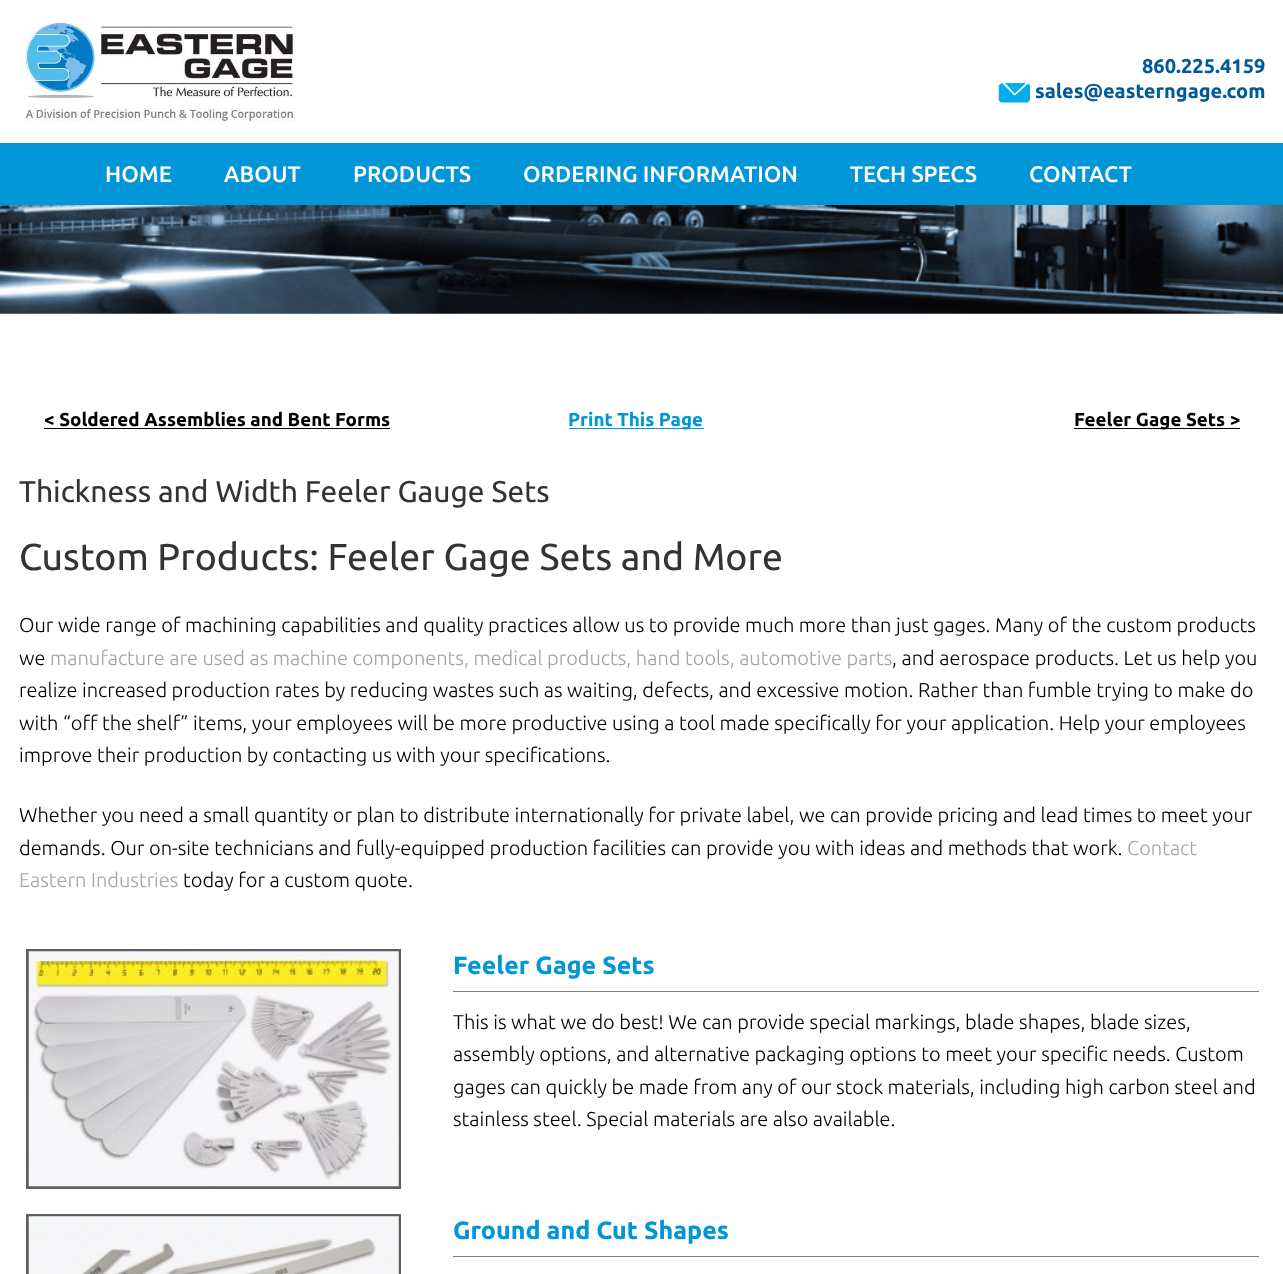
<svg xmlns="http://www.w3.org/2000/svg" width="1283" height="1274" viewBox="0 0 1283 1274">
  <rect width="100%" height="100%" fill="rgb(255,255,255)"/>
  <image x="19" y="17" width="277" height="105" href="pic1.png"/>
  <text x="1142" y="73" font-family="Ubuntu" font-size="20" font-weight="bold" fill="rgb(0,90,155)">860.225.4159</text>
  <image x="998" y="83" width="32" height="20" href="pic2.png"/>
  <text x="1035" y="98" font-family="Ubuntu" font-size="20" font-weight="bold" fill="rgb(0,90,155)">sales@easterngage.com</text>
  <rect x="0" y="143" width="1283" height="62" fill="rgb(1,150,216)"/>
  <g font-family="Ubuntu" font-size="22.5" font-weight="500" fill="rgb(255,255,255)">
    <text x="105" y="182">HOME</text>
    <text x="224" y="182">ABOUT</text>
    <text x="353" y="182">PRODUCTS</text>
    <text x="523" y="182">ORDERING INFORMATION</text>
    <text x="850" y="182">TECH SPECS</text>
    <text x="1029" y="182">CONTACT</text>
  </g>
  <image x="0" y="205" width="1283" height="109" href="pic3.png"/>
  <text x="44" y="426" font-family="Ubuntu" font-size="18.75" font-weight="bold" fill="rgb(0,0,0)">&lt; Soldered Assemblies and Bent Forms</text>
  <rect x="44" y="428" width="346" height="1" fill="rgb(0,0,0)"/>
  <rect x="569" y="428" width="135" height="1" fill="rgb(1,150,216)"/>
  <text x="568" y="426" font-family="Ubuntu" font-size="18.75" font-weight="bold" fill="rgb(1,150,216)">Print This Page</text>
  <rect x="1074" y="428" width="166" height="1" fill="rgb(0,0,0)"/>
  <text x="1074" y="426" font-family="Ubuntu" font-size="18.75" font-weight="bold" fill="rgb(0,0,0)">Feeler Gage Sets &gt;</text>
  <text x="19" y="502" font-family="Ubuntu" font-size="30" fill="rgb(51,51,51)">Thickness and Width Feeler Gauge Sets</text>
  <text x="19" y="570" font-family="Ubuntu" font-size="37.5" fill="rgb(51,51,51)">Custom Products: Feeler Gage Sets and More</text>
  <g font-family="Ubuntu" font-size="20" font-weight="300" fill="rgb(0,0,0)">
    <text>
      <tspan x="19" y="632">Our wide range of machining capabilities and quality practices allow us to provide much more than just gages. Many of the custom products</tspan>
      <tspan x="19" y="665">we</tspan>
    </text>
  </g>
  <text x="50" y="665" font-family="Ubuntu" font-size="20" font-weight="300" fill="rgb(164,164,164)">manufacture are used as machine components, medical products, hand tools, automotive parts</text>
  <g font-family="Ubuntu" font-size="20" font-weight="300" fill="rgb(0,0,0)">
    <text x="892" y="665">, and aerospace products. Let us help you</text>
    <text>
      <tspan x="19" y="697">realize increased production rates by reducing wastes such as waiting, defects, and excessive motion. Rather than fumble trying to make do</tspan>
      <tspan x="19" y="730">with “off the shelf” items, your employees will be more productive using a tool made specifically for your application. Help your employees</tspan>
      <tspan x="19" y="762">improve their production by contacting us with your specifications.</tspan>
    </text>
    <text>
      <tspan x="19" y="822">Whether you need a small quantity or plan to distribute internationally for private label, we can provide pricing and lead times to meet your</tspan>
      <tspan x="19" y="855">demands. Our on-site technicians and fully-equipped production facilities can provide you with ideas and methods that work.</tspan>
    </text>
  </g>
  <g font-family="Ubuntu" font-size="20" font-weight="300" fill="rgb(164,164,164)">
    <text x="1127" y="855">Contact</text>
    <text x="19" y="887">Eastern Industries</text>
  </g>
  <text x="183" y="887" font-family="Ubuntu" font-size="20" font-weight="300" fill="rgb(0,0,0)">today for a custom quote.</text>
  <rect x="27.5" y="950.5" width="372" height="237" fill="none" stroke="rgb(95,94,95)" stroke-width="3"/>
  <image x="28" y="951" width="371" height="236" href="pic4.png"/>
  <rect x="453" y="991" width="806" height="1" fill="rgb(125,125,125)"/>
  <text x="453" y="974" font-family="Ubuntu" font-size="25" font-weight="bold" fill="rgb(1,150,216)">Feeler Gage Sets</text>
  <g font-family="Ubuntu" font-size="20" font-weight="300" fill="rgb(0,0,0)">
    <text>
      <tspan x="453" y="1029">This is what we do best! We can provide special markings, blade shapes, blade sizes,</tspan>
      <tspan x="453" y="1061">assembly options, and alternative packaging options to meet your specific needs. Custom</tspan>
      <tspan x="453" y="1094">gages can quickly be made from any of our stock materials, including high carbon steel and</tspan>
      <tspan x="453" y="1126">stainless steel. Special materials are also available.</tspan>
    </text>
  </g>
  <rect x="27.5" y="1215.5" width="372" height="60" fill="none" stroke="rgb(95,94,95)" stroke-width="3"/>
  <image x="28" y="1216" width="371" height="58" href="pic5.png"/>
  <rect x="453" y="1256" width="806" height="1" fill="rgb(125,125,125)"/>
  <text x="453" y="1239" font-family="Ubuntu" font-size="25" font-weight="bold" fill="rgb(1,150,216)">Ground and Cut Shapes</text>
</svg>
